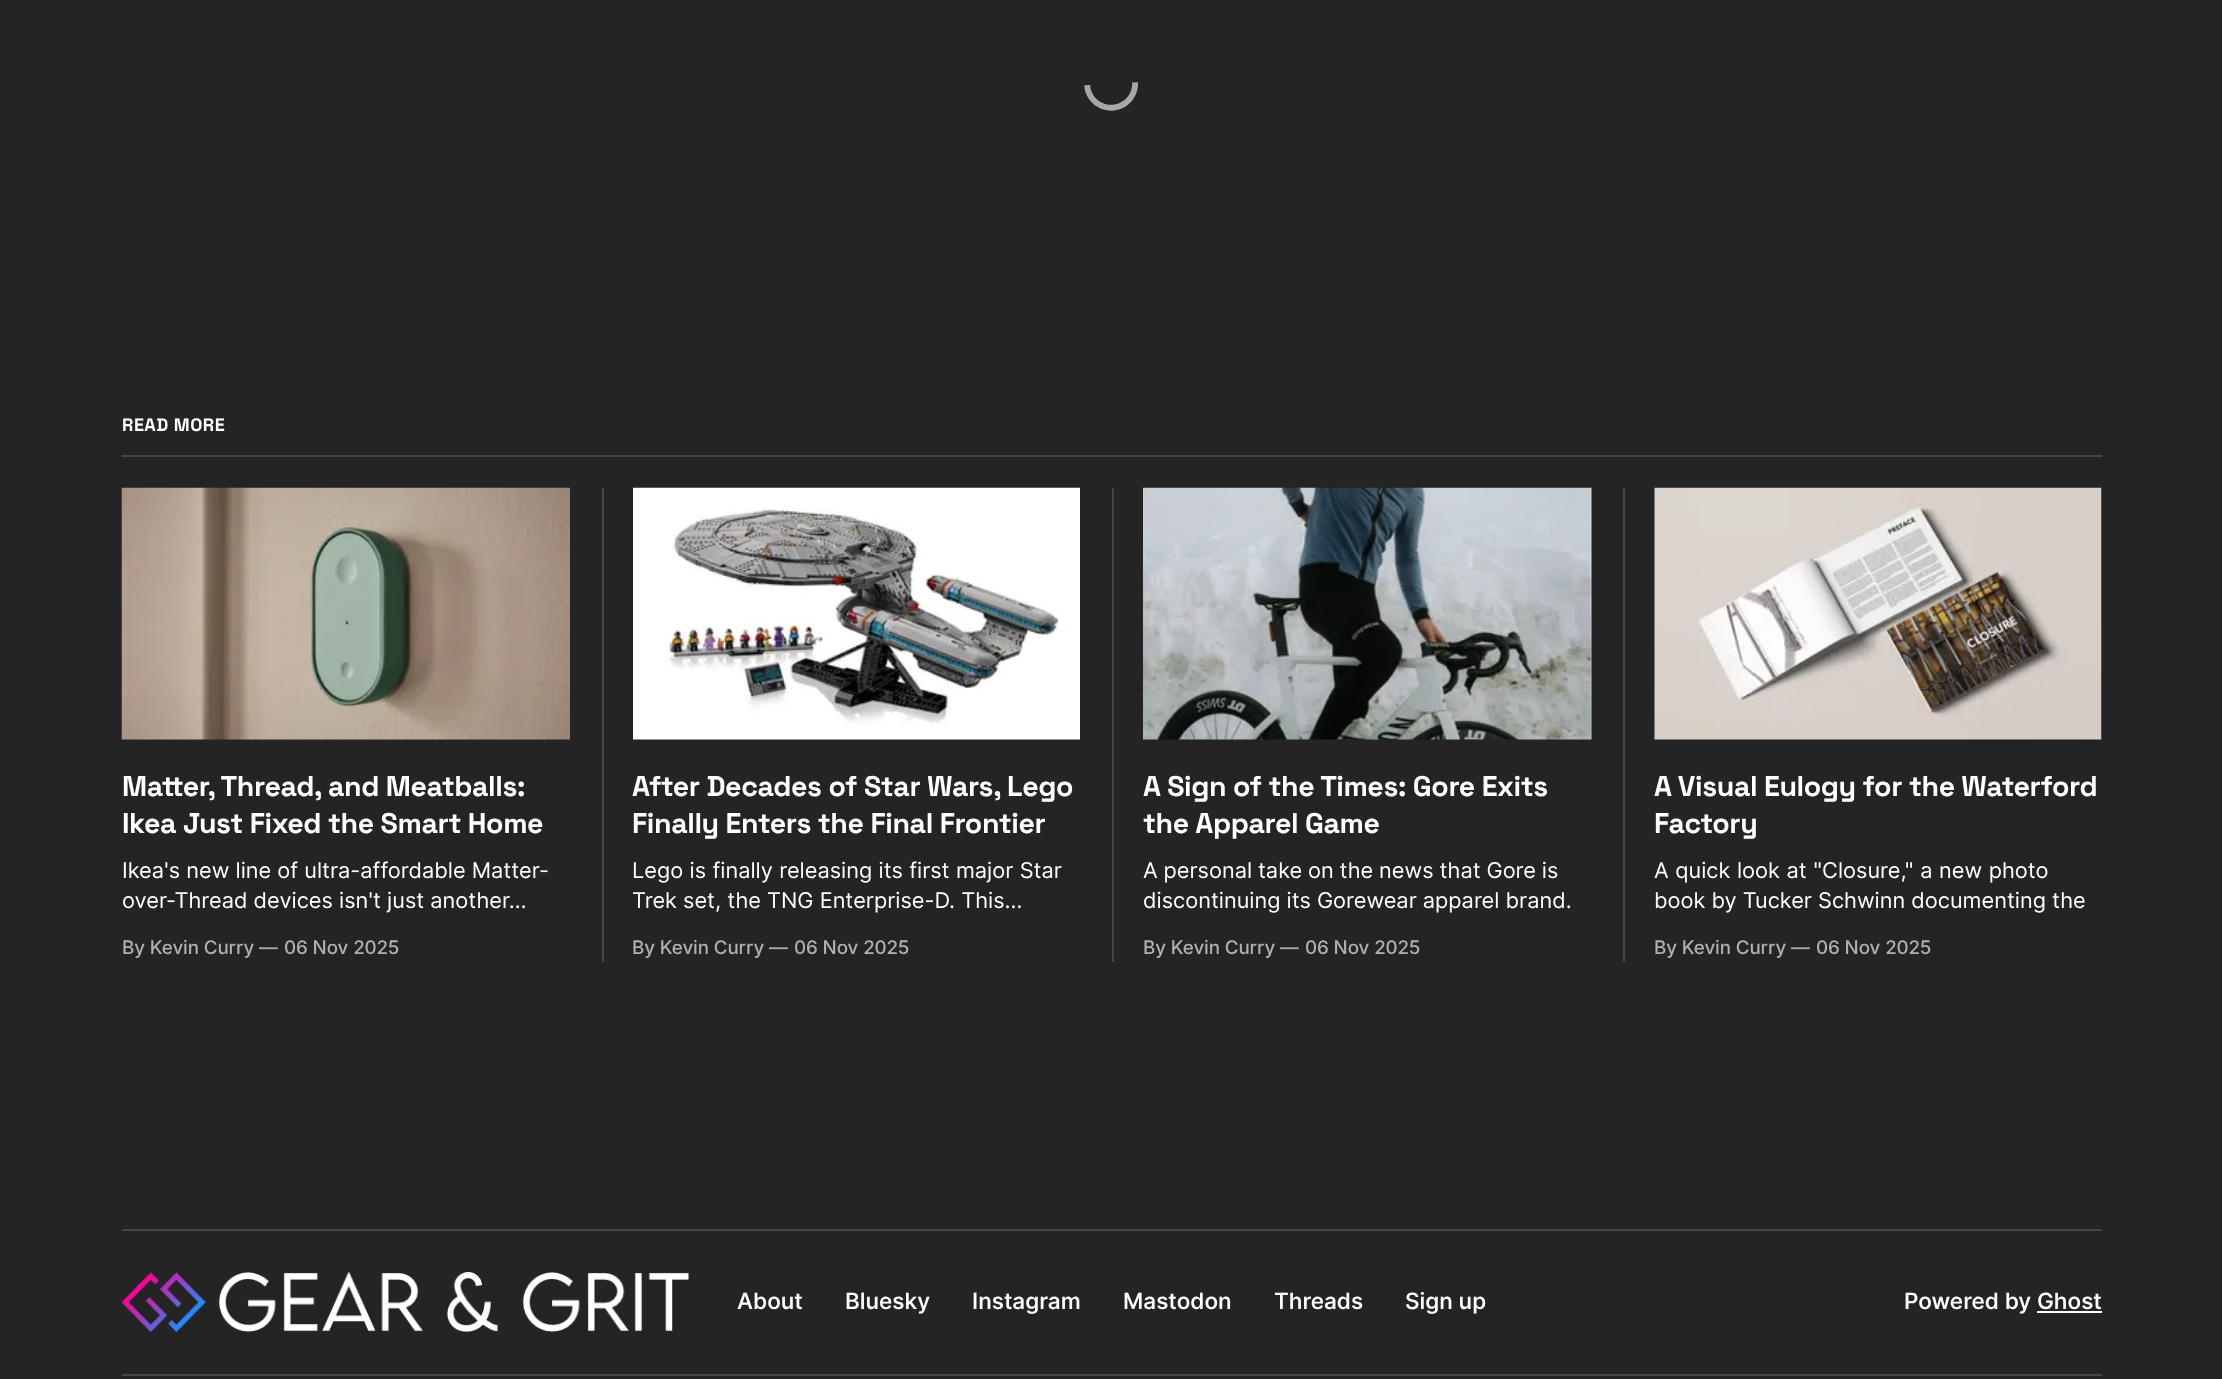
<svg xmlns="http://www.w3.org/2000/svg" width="2222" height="1379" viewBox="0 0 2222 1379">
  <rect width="100%" height="100%" fill="rgb(36,36,36)"/>
  <image x="1084" y="82" width="54" height="29" href="pic1.png"/>
  <rect x="122" y="455" width="1980" height="2" fill="rgb(69,69,69)"/>
  <text x="122" y="431" font-family="Space Grotesk" font-size="18" font-weight="300" letter-spacing="0.5" fill="rgb(255,255,255)">READ MORE</text>
  <image x="121" y="487" width="449" height="253" href="pic2.png"/>
  <g font-family="Space Grotesk" font-size="28.5" font-weight="300" letter-spacing="-0.4" fill="rgb(255,255,255)">
    <text>
      <tspan x="122" y="796">Matter, Thread, and Meatballs:</tspan>
      <tspan x="122" y="833">Ikea Just Fixed the Smart Home</tspan>
    </text>
  </g>
  <g font-family="Inter" font-size="21.75" fill="rgb(255,255,255)">
    <text>
      <tspan x="122" y="878">Ikea's new line of ultra-affordable Matter-</tspan>
      <tspan x="122" y="908">over-Thread devices isn't just another…</tspan>
    </text>
  </g>
  <g font-family="'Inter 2'" font-size="18.75" font-weight="500" letter-spacing="-0.1" fill="rgb(176,176,176)">
    <text x="122" y="954">By Kevin Curry —</text>
    <text x="284" y="954">06 Nov 2025</text>
  </g>
  <rect x="602" y="488" width="2" height="474" fill="rgb(69,69,69)"/>
  <image x="633" y="487" width="447" height="253" href="pic3.png"/>
  <g font-family="Space Grotesk" font-size="28.5" font-weight="300" letter-spacing="-0.4" fill="rgb(255,255,255)">
    <text>
      <tspan x="632" y="796">After Decades of Star Wars, Lego</tspan>
      <tspan x="632" y="833">Finally Enters the Final Frontier</tspan>
    </text>
  </g>
  <g font-family="Inter" font-size="21.75" fill="rgb(255,255,255)">
    <text>
      <tspan x="632" y="878" word-spacing="0.25">Lego is finally releasing its first major Star</tspan>
      <tspan x="632" y="908">Trek set, the TNG Enterprise-D. This…</tspan>
    </text>
  </g>
  <g font-family="'Inter 2'" font-size="18.75" font-weight="500" letter-spacing="-0.1" fill="rgb(176,176,176)">
    <text x="632" y="954">By Kevin Curry —</text>
    <text x="794" y="954">06 Nov 2025</text>
  </g>
  <rect x="1112" y="488" width="2" height="474" fill="rgb(69,69,69)"/>
  <image x="1143" y="487" width="449" height="253" href="pic4.png"/>
  <g font-family="Space Grotesk" font-size="28.5" font-weight="300" letter-spacing="-0.4" fill="rgb(255,255,255)">
    <text>
      <tspan x="1143" y="796">A Sign of the Times: Gore Exits</tspan>
      <tspan x="1143" y="833">the Apparel Game</tspan>
    </text>
  </g>
  <g font-family="Inter" font-size="21.75" fill="rgb(255,255,255)">
    <text>
      <tspan x="1143" y="878" word-spacing="-0.25">A personal take on the news that Gore is</tspan>
      <tspan x="1143" y="908">discontinuing its Gorewear apparel brand.</tspan>
    </text>
  </g>
  <g font-family="'Inter 2'" font-size="18.75" font-weight="500" letter-spacing="-0.1" fill="rgb(176,176,176)">
    <text x="1143" y="954">By Kevin Curry —</text>
    <text x="1305" y="954">06 Nov 2025</text>
  </g>
  <rect x="1623" y="488" width="2" height="474" fill="rgb(69,69,69)"/>
  <image x="1654" y="487" width="448" height="253" href="pic5.png"/>
  <g font-family="Space Grotesk" font-size="28.5" font-weight="300" letter-spacing="-0.4" fill="rgb(255,255,255)">
    <text>
      <tspan x="1654" y="796">A Visual Eulogy for the Waterford</tspan>
      <tspan x="1654" y="833">Factory</tspan>
    </text>
  </g>
  <g font-family="Inter" font-size="21.75" fill="rgb(255,255,255)">
    <text>
      <tspan x="1654" y="878" word-spacing="0.5">A quick look at "Closure," a new photo</tspan>
      <tspan x="1654" y="908">book by Tucker Schwinn documenting the</tspan>
    </text>
  </g>
  <g font-family="'Inter 2'" font-size="18.75" font-weight="500" letter-spacing="-0.1" fill="rgb(176,176,176)">
    <text x="1654" y="954">By Kevin Curry —</text>
    <text x="1816" y="954">06 Nov 2025</text>
  </g>
  <rect x="122" y="1229" width="1980" height="2" fill="rgb(69,69,69)"/>
  <rect x="122" y="1374" width="1980" height="2" fill="rgb(69,69,69)"/>
  <image x="121" y="1272" width="568" height="60" href="pic6.png"/>
  <g font-family="Inter" font-size="22.5" font-weight="500" fill="rgb(255,255,255)">
    <text x="737" y="1309">About</text>
    <text x="845" y="1309">Bluesky</text>
    <text x="972" y="1309">Instagram</text>
    <text x="1123" y="1309">Mastodon</text>
    <text x="1274" y="1309">Threads</text>
    <text x="1405" y="1309">Sign up</text>
    <text x="1904" y="1309">Powered by Ghost</text>
  </g>
  <rect x="2037" y="1311" width="65" height="2" fill="rgb(255,255,255)"/>
</svg>
